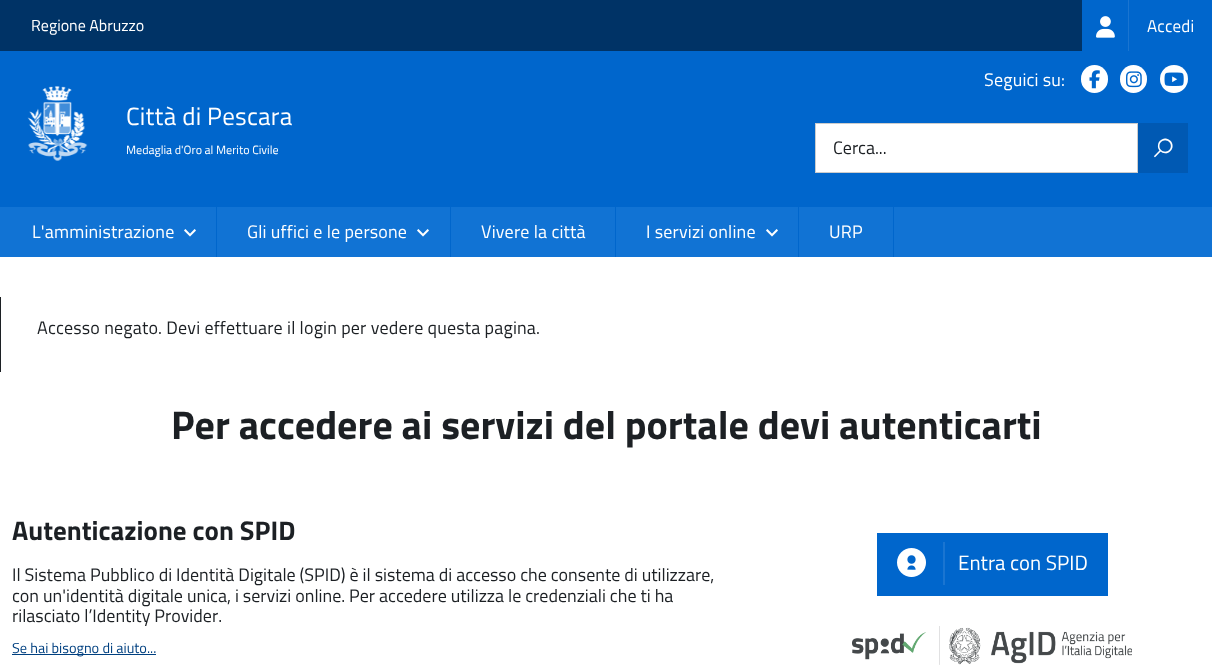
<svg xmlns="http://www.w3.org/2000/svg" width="1212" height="670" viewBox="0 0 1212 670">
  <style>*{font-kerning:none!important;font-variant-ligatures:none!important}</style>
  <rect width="100%" height="100%" fill="rgb(255,255,255)"/>
  <rect x="0" y="0" width="1082" height="51" fill="rgb(0,51,102)"/>
  <text x="31" y="31" font-family="Titillium Web" font-size="16" fill="rgb(255,255,255)">Regione Abruzzo</text>
  <rect x="1082" y="0" width="46" height="51" fill="rgb(0,102,204)"/>
  <rect x="1128" y="0" width="1" height="51" fill="rgb(26,117,209)"/>
  <image x="1096" y="16" width="19" height="22" href="pic1.png"/>
  <rect x="1129" y="0" width="83" height="51" fill="rgb(0,102,204)"/>
  <text x="1147" y="32" font-family="Titillium Web" font-size="17" letter-spacing="0.18" fill="rgb(255,255,255)">Accedi</text>
  <rect x="0" y="51" width="1212" height="156" fill="rgb(0,102,204)"/>
  <image x="27" y="86" width="61" height="75" href="pic2.png"/>
  <text x="126" y="125" font-family="Titillium Web" font-size="25" letter-spacing="0.25" fill="rgb(255,255,255)">Città di Pescara</text>
  <text x="126" y="154" font-family="Titillium Web" font-size="12" fill="rgb(255,255,255)">Medaglia d'Oro al Merito Civile</text>
  <text x="984" y="86" font-family="Titillium Web" font-size="18" letter-spacing="0.18" fill="rgb(255,255,255)">Seguici su:</text>
  <rect x="1081" y="65" width="27" height="28" rx="13.5" fill="rgb(255,255,255)"/>
  <image x="1089" y="70" width="11" height="19" href="pic3.png"/>
  <rect x="1120" y="65" width="27" height="28" rx="13.5" fill="rgb(255,255,255)"/>
  <image x="1126" y="71" width="16" height="17" href="pic4.png"/>
  <circle cx="1174" cy="79" r="14" fill="rgb(255,255,255)"/>
  <image x="1164" y="72" width="20" height="14" href="pic5.png"/>
  <rect x="815.5" y="123.5" width="322" height="49" fill="rgb(255,255,255)" stroke="rgb(204,204,204)"/>
  <rect x="1138" y="123" width="50" height="50" fill="rgb(0,89,179)"/>
  <text x="1154" y="156" font-family="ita" font-size="18" font-weight="bold" fill="rgb(255,255,255)">🔍</text>
  <text x="833" y="154" font-family="Titillium Web" font-size="18" fill="rgb(28,32,36)">Cerca...</text>
  <rect x="0" y="207" width="1212" height="50" fill="rgb(17,115,212)"/>
  <rect x="216" y="207" width="1" height="50" fill="rgb(0,102,204)"/>
  <text x="32" y="238" font-family="Titillium Web" font-size="18" letter-spacing="0.18" fill="rgb(255,255,255)">L'amministrazione</text>
  <text x="184" y="238" font-family="ita" font-size="12" letter-spacing="0.18" fill="rgb(255,255,255)">⏶</text>
  <rect x="450" y="207" width="1" height="50" fill="rgb(0,102,204)"/>
  <text x="247" y="238" font-family="Titillium Web" font-size="18" letter-spacing="0.18" fill="rgb(255,255,255)">Gli uffici e le persone</text>
  <text x="417" y="238" font-family="ita" font-size="12" letter-spacing="0.18" fill="rgb(255,255,255)">⏶</text>
  <rect x="615" y="207" width="1" height="50" fill="rgb(0,102,204)"/>
  <text x="481" y="238" font-family="Titillium Web" font-size="18" letter-spacing="0.18" fill="rgb(255,255,255)">Vivere la città</text>
  <rect x="798" y="207" width="1" height="50" fill="rgb(0,102,204)"/>
  <text x="646" y="238" font-family="Titillium Web" font-size="18" letter-spacing="0.18" fill="rgb(255,255,255)">I servizi online</text>
  <text x="766" y="238" font-family="ita" font-size="12" letter-spacing="0.18" fill="rgb(255,255,255)">⏶</text>
  <rect x="893" y="207" width="1" height="50" fill="rgb(0,102,204)"/>
  <text x="829" y="238" font-family="Titillium Web" font-size="18" letter-spacing="0.18" fill="rgb(255,255,255)">URP</text>
  <rect x="0" y="297" width="1" height="75" fill="rgb(28,32,36)"/>
  <text x="37" y="334" font-family="Titillium Web" font-size="18" letter-spacing="0.18" fill="rgb(28,32,36)">Accesso negato. Devi effettuare il login per vedere questa pagina.</text>
  <text x="171" y="439" font-family="Titillium Web" font-size="40" font-weight="bold" fill="rgb(28,32,36)">Per accedere ai servizi del portale devi autenticarti</text>
  <text x="12" y="540" font-family="Titillium Web" font-size="27" font-weight="bold" fill="rgb(28,32,36)">Autenticazione con SPID</text>
  <g font-family="Titillium Web" font-size="18" fill="rgb(28,32,36)">
    <text>
      <tspan x="12" y="581">Il Sistema Pubblico di Identità Digitale (SPID) è il sistema di accesso che consente di utilizzare,</tspan>
      <tspan x="12" y="602">con un'identità digitale unica, i servizi online. Per accedere utilizza le credenziali che ti ha</tspan>
      <tspan x="12" y="622">rilasciato l’Identity Provider.</tspan>
    </text>
  </g>
  <rect x="12" y="654" width="144" height="1" fill="rgb(0,64,128)"/>
  <text x="12" y="653" font-family="Titillium Web" font-size="14.4" fill="rgb(0,64,128)">Se hai bisogno di aiuto...</text>
  <rect x="877" y="533" width="231" height="63" fill="rgb(0,102,204)"/>
  <image x="897" y="548" width="29" height="29" href="pic6.png"/>
  <rect x="943" y="542" width="2" height="43" fill="rgb(26,117,209)"/>
  <text x="958" y="570" font-family="Titillium Web" font-size="20.75" fill="rgb(255,255,255)">Entra con SPID</text>
  <image x="852" y="626" width="280" height="39" href="pic7.png"/>
</svg>
